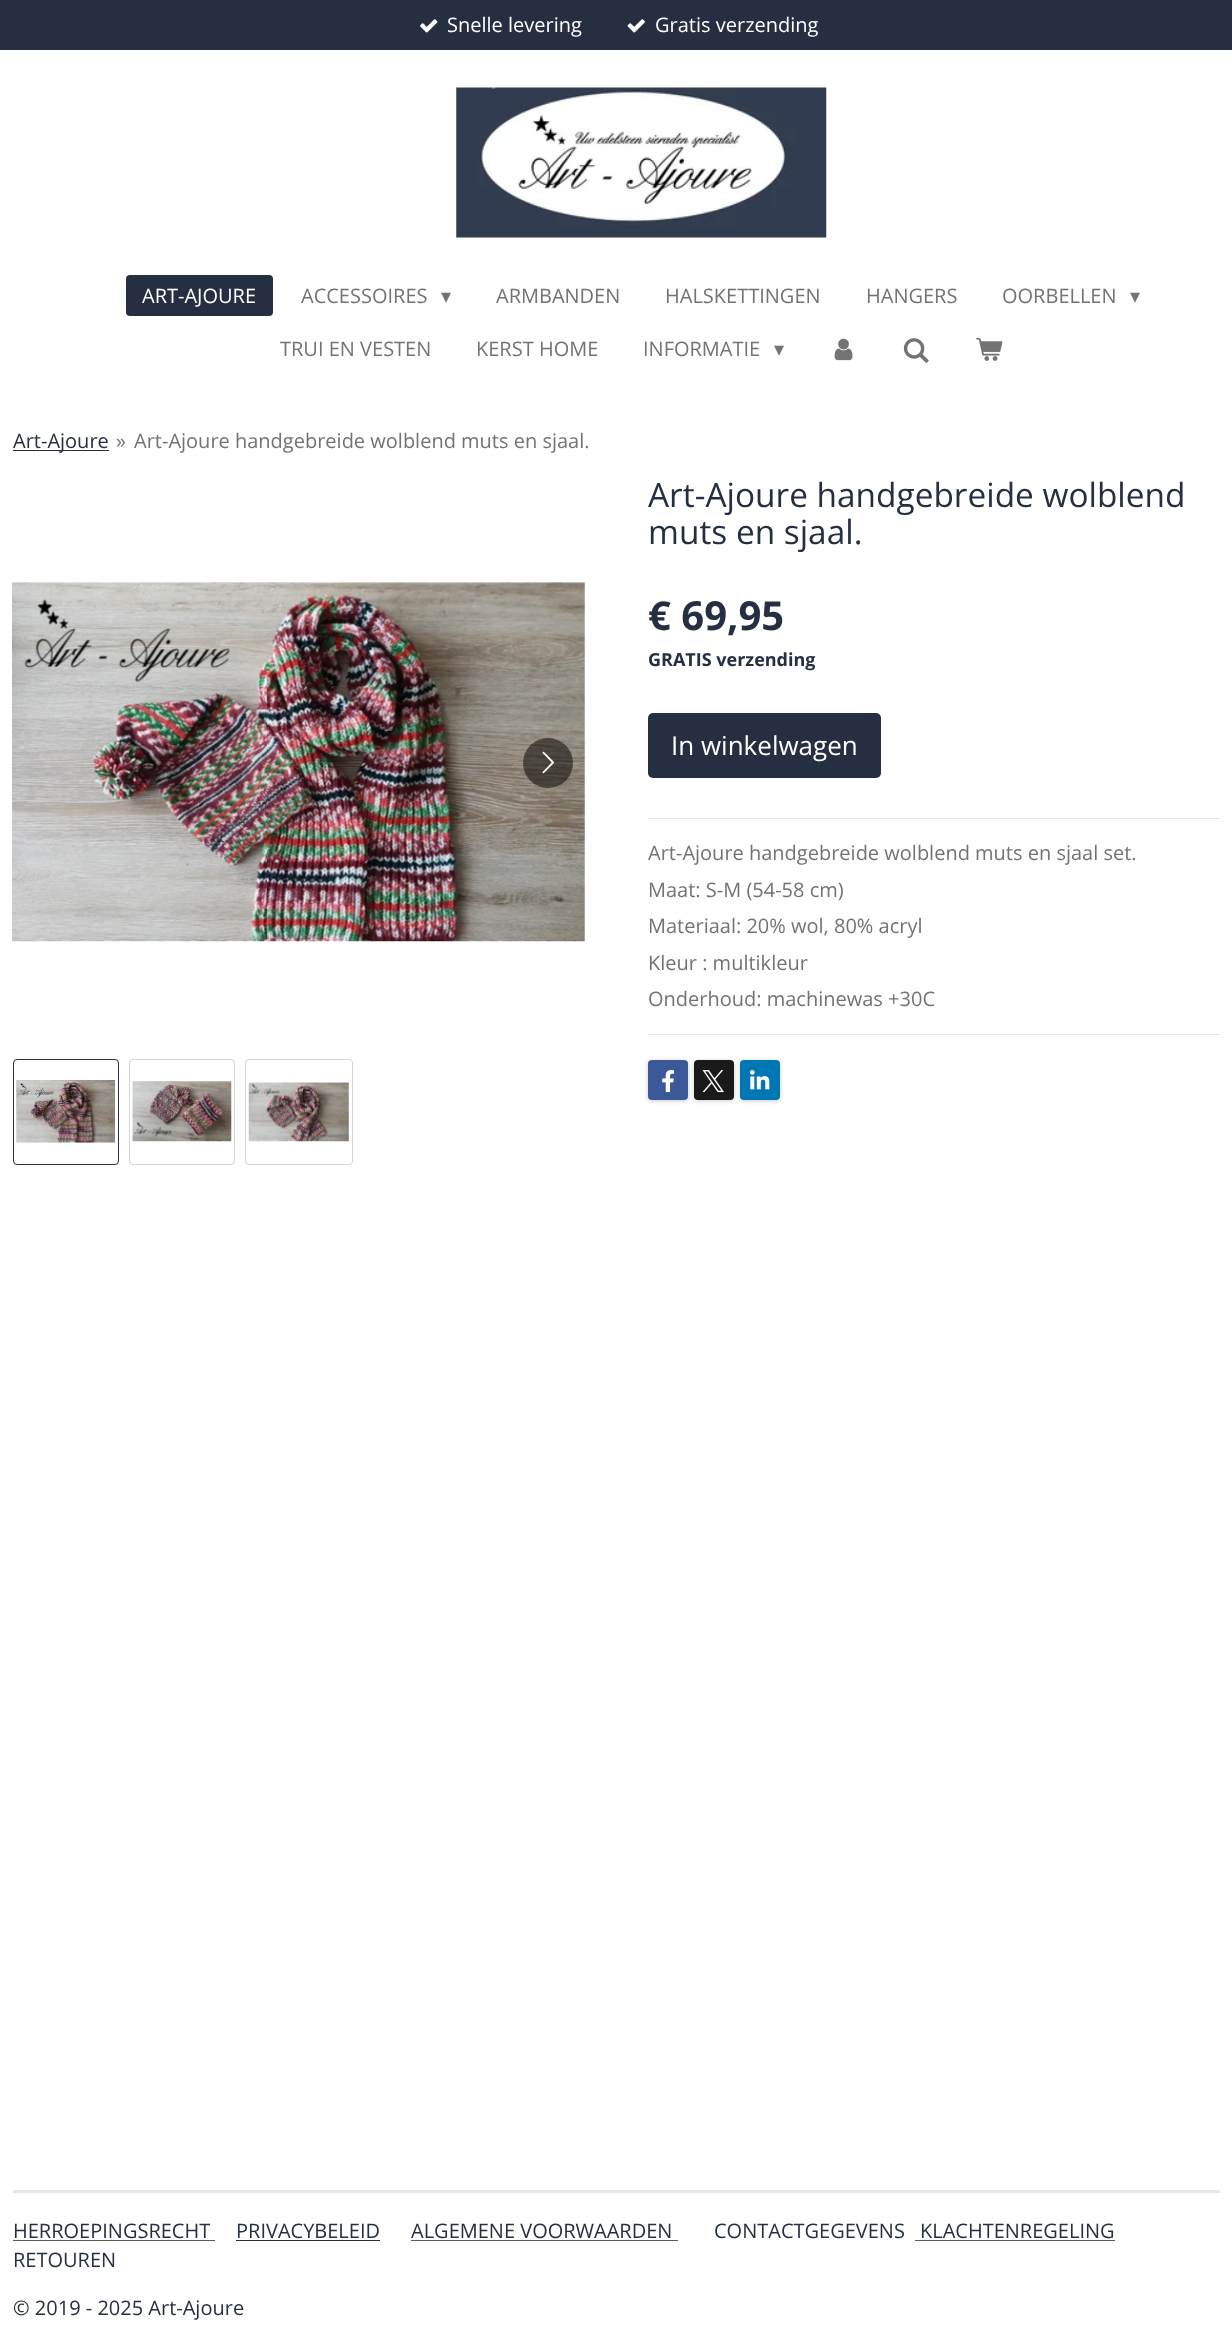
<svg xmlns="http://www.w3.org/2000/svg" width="1232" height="2347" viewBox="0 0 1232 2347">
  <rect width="100%" height="100%" fill="rgb(255,255,255)"/>
  <rect x="0" y="0" width="1232" height="50" fill="rgb(38,47,65)"/>
  <image x="420" y="19" width="18" height="14" href="pic1.png"/>
  <text x="447" y="32" font-family="Open Sans" font-size="20" fill="rgb(255,255,255)">Snelle levering</text>
  <image x="627" y="19" width="18" height="14" href="pic2.png"/>
  <text x="655" y="32" font-family="Open Sans" font-size="20" fill="rgb(255,255,255)">Gratis verzending</text>
  <image x="456" y="87" width="371" height="151" href="pic3.png"/>
  <rect x="126" y="275" width="147" height="41" rx="4" fill="rgb(38,47,65)"/>
  <text x="142" y="303" font-family="Open Sans" font-size="20" fill="rgb(255,255,255)">ART-AJOURE</text>
  <text x="301" y="303" font-family="Open Sans" font-size="20" fill="rgb(115,115,115)">ACCESSOIRES</text>
  <text x="441" y="303" font-family="DejaVu Sans" font-size="20" fill="rgb(115,115,115)">▾</text>
  <g font-family="Open Sans" font-size="20" fill="rgb(115,115,115)">
    <text x="496" y="303">ARMBANDEN</text>
    <text x="665" y="303">HALSKETTINGEN</text>
    <text x="866" y="303">HANGERS</text>
    <text x="1002" y="303">OORBELLEN</text>
  </g>
  <text x="1130" y="303" font-family="DejaVu Sans" font-size="20" fill="rgb(115,115,115)">▾</text>
  <g font-family="Open Sans" font-size="20" fill="rgb(115,115,115)">
    <text x="280" y="356">TRUI EN VESTEN</text>
    <text x="476" y="356">KERST HOME</text>
    <text x="643" y="356">INFORMATIE</text>
  </g>
  <text x="774" y="356" font-family="DejaVu Sans" font-size="20" fill="rgb(115,115,115)">▾</text>
  <image x="834" y="338" width="19" height="23" href="pic4.png"/>
  <image x="903" y="338" width="26" height="26" href="pic5.png"/>
  <image x="976" y="337" width="27" height="24" href="pic6.png"/>
  <rect x="13" y="450" width="96" height="1" fill="rgb(38,47,65)"/>
  <text x="13" y="448" font-family="Open Sans" font-size="20" fill="rgb(38,47,65)">Art-Ajoure</text>
  <g font-family="Open Sans" font-size="20" fill="rgb(115,115,115)">
    <text x="116" y="448">»</text>
    <text x="134" y="448">Art-Ajoure handgebreide wolblend muts en sjaal.</text>
  </g>
  <g font-family="Open Sans" font-size="33.4" fill="rgb(38,47,65)">
    <text>
      <tspan x="648" y="507">Art-Ajoure handgebreide wolblend</tspan>
      <tspan x="648" y="544">muts en sjaal.</tspan>
    </text>
  </g>
  <image x="12" y="582" width="573" height="360" href="pic7.png"/>
  <circle cx="548" cy="763" r="25" fill="rgba(0,0,0,0.5)"/>
  <image x="542" y="751" width="13" height="23" href="pic8.png"/>
  <rect x="13.5" y="1059.5" width="105" height="105" rx="3.5" fill="none" stroke="rgb(38,47,65)"/>
  <image x="16" y="1080" width="99" height="63" href="pic9.png"/>
  <rect x="129.5" y="1059.5" width="105" height="105" rx="3.5" fill="none" stroke="rgb(213,213,213)"/>
  <image x="132" y="1081" width="100" height="61" href="pic10.png"/>
  <rect x="245.5" y="1059.5" width="107" height="105" rx="3.5" fill="none" stroke="rgb(213,213,213)"/>
  <image x="248" y="1082" width="101" height="60" href="pic11.png"/>
  <text x="648" y="630" font-family="Open Sans" font-size="40" font-weight="bold" fill="rgb(38,47,65)">€ 69,95</text>
  <text x="648" y="666" font-family="Open Sans" font-size="18" font-weight="bold" fill="rgb(38,47,65)">GRATIS verzending</text>
  <rect x="648" y="713" width="233" height="65" rx="5" fill="rgb(38,47,65)"/>
  <text x="671" y="755" font-family="Open Sans" font-size="26" fill="rgb(255,255,255)">In winkelwagen</text>
  <rect x="648" y="818" width="572" height="1" fill="rgb(227,227,227)"/>
  <g font-family="Open Sans" font-size="20" fill="rgb(115,115,115)">
    <text>
      <tspan x="648" y="860">Art-Ajoure handgebreide wolblend muts en sjaal set.</tspan>
      <tspan x="648" y="897">Maat: S-M (54-58 cm)</tspan>
      <tspan x="648" y="933">Materiaal: 20% wol, 80% acryl</tspan>
      <tspan x="648" y="970">Kleur : multikleur</tspan>
      <tspan x="648" y="1006">Onderhoud: machinewas +30C</tspan>
    </text>
  </g>
  <rect x="648" y="1034" width="572" height="1" fill="rgb(227,227,227)"/>
  <rect x="648" y="1061" width="40" height="40" rx="4" fill="rgba(0,0,0,0.2)" filter="blur(2px)"/>
  <rect x="648" y="1060" width="40" height="40" rx="4" fill="rgb(59,89,152)"/>
  <image x="662" y="1070" width="12" height="23" href="pic12.png"/>
  <rect x="694" y="1061" width="40" height="40" rx="4" fill="rgba(0,0,0,0.2)" filter="blur(2px)"/>
  <rect x="694" y="1060" width="40" height="40" rx="4" fill="rgb(26,26,26)"/>
  <image x="702" y="1070" width="22" height="23" href="pic13.png"/>
  <rect x="740" y="1061" width="40" height="40" rx="4" fill="rgba(0,0,0,0.2)" filter="blur(2px)"/>
  <rect x="740" y="1060" width="40" height="40" rx="4" fill="rgb(0,119,181)"/>
  <image x="750" y="1070" width="20" height="20" href="pic14.png"/>
  <rect x="13" y="2190" width="1207" height="3" fill="rgb(230,230,230)"/>
  <text x="13" y="2238" font-family="Open Sans" font-size="20" fill="rgb(38,47,65)">HERROEPINGSRECHT</text>
  <rect x="13" y="2240" width="202" height="1" fill="rgb(92,92,92)"/>
  <text x="236" y="2238" font-family="Open Sans" font-size="20" fill="rgb(38,47,65)">PRIVACYBELEID</text>
  <rect x="236" y="2240" width="144" height="1" fill="rgb(38,47,65)"/>
  <text x="411" y="2238" font-family="Open Sans" font-size="20" fill="rgb(38,47,65)">ALGEMENE VOORWAARDEN</text>
  <rect x="411" y="2240" width="267" height="1" fill="rgb(92,92,92)"/>
  <g font-family="Open Sans" font-size="20" fill="rgb(38,47,65)">
    <text x="714" y="2238">CONTACTGEGEVENS</text>
    <text x="920" y="2238">KLACHTENREGELING</text>
  </g>
  <rect x="915" y="2240" width="200" height="1" fill="rgb(92,92,92)"/>
  <g font-family="Open Sans" font-size="20" fill="rgb(38,47,65)">
    <text x="13" y="2267">RETOUREN</text>
    <text x="13" y="2315">© 2019 - 2025 Art-Ajoure</text>
  </g>
</svg>
